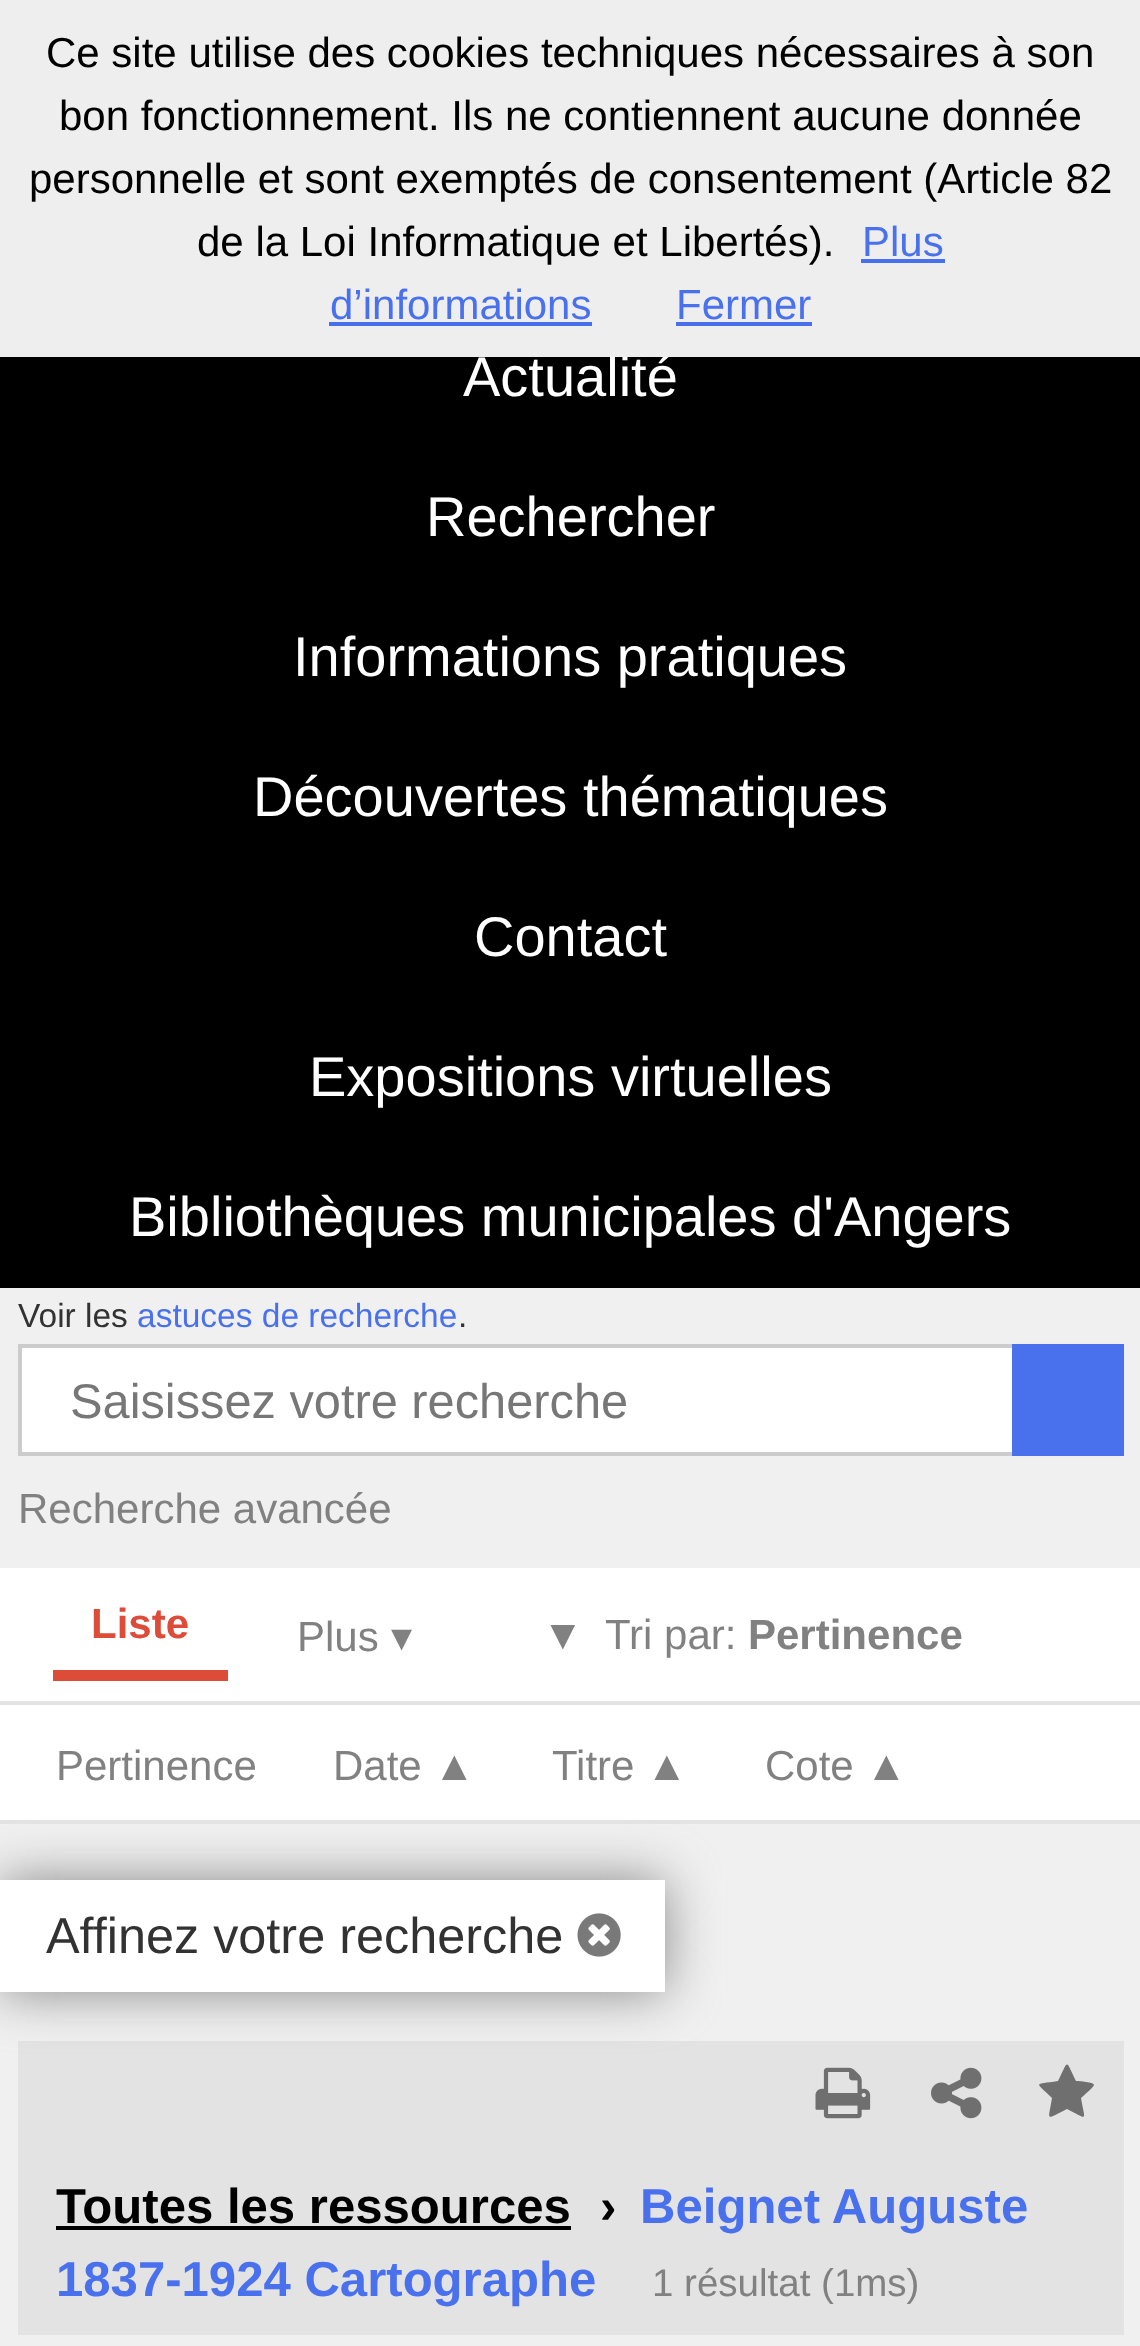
<svg xmlns="http://www.w3.org/2000/svg" width="1140" height="2346" viewBox="0 0 1140 2346">
  <rect width="100%" height="100%" fill="rgb(255,255,255)"/>
  <rect x="0" y="357" width="1140" height="931" fill="rgb(0,0,0)"/>
  <text x="463" y="396" font-family="Liberation Sans" font-size="56" fill="rgb(255,255,255)">Actualité</text>
  <rect x="0" y="0" width="1140" height="357" fill="rgb(238,238,238)"/>
  <g font-family="Liberation Sans" font-size="42" fill="rgb(0,0,0)">
    <text x="46" y="67">Ce site utilise des cookies techniques nécessaires à son</text>
    <text x="59" y="130">bon fonctionnement. Ils ne contiennent aucune donnée</text>
    <text x="29" y="193">personnelle et sont exemptés de consentement (Article 82</text>
    <text x="197" y="256">de la Loi Informatique et Libertés).</text>
  </g>
  <text x="862" y="256" font-family="Liberation Sans" font-size="42" fill="rgb(74,113,237)">Plus</text>
  <rect x="861" y="259" width="84" height="4" fill="rgb(73,112,236)"/>
  <text x="330" y="319" font-family="Liberation Sans" font-size="42" fill="rgb(74,113,237)">d’informations</text>
  <rect x="329" y="322" width="263" height="4" fill="rgb(73,112,236)"/>
  <text x="676" y="319" font-family="Liberation Sans" font-size="42" fill="rgb(74,113,237)">Fermer</text>
  <rect x="676" y="322" width="136" height="4" fill="rgb(73,112,236)"/>
  <g font-family="Liberation Sans" font-size="56" fill="rgb(255,255,255)">
    <text x="426" y="536">Rechercher</text>
    <text x="293" y="676">Informations pratiques</text>
    <text x="253" y="816">Découvertes thématiques</text>
    <text x="474" y="956">Contact</text>
    <text x="309" y="1096">Expositions virtuelles</text>
    <text x="129" y="1236">Bibliothèques municipales d'Angers</text>
  </g>
  <rect x="0" y="1288" width="1140" height="280" fill="rgb(240,240,240)"/>
  <text x="18" y="1327" font-family="Liberation Sans" font-size="33.5" fill="rgb(50,50,50)">Voir les</text>
  <text x="137" y="1327" font-family="Liberation Sans" font-size="33.5" fill="rgb(74,113,237)">astuces de recherche</text>
  <text x="458" y="1327" font-family="Liberation Sans" font-size="33.5" fill="rgb(50,50,50)">.</text>
  <rect x="22" y="1348" width="990" height="104" fill="rgb(255,255,255)"/>
  <rect x="20" y="1346" width="1102" height="108" fill="none" stroke="rgb(204,204,204)" stroke-width="4"/>
  <text x="70" y="1418" font-family="Liberation Sans" font-size="48.75" fill="rgb(119,119,119)">Saisissez votre recherche</text>
  <rect x="1012" y="1344" width="112" height="112" fill="rgb(74,113,237)"/>
  <text x="18" y="1523" font-family="Liberation Sans" font-size="42" fill="rgb(129,129,129)">Recherche avancée</text>
  <rect x="0" y="1820" width="1140" height="4" fill="rgb(227,227,227)"/>
  <rect x="53" y="1670" width="175" height="11" fill="rgb(221,75,57)"/>
  <text x="91" y="1638" font-family="Liberation Sans" font-size="42" font-weight="bold" fill="rgb(221,75,57)">Liste</text>
  <text x="297" y="1651" font-family="Liberation Sans" font-size="42" fill="rgb(129,129,129)">Plus</text>
  <text x="391" y="1651" font-family="DejaVu Sans" font-size="42" fill="rgb(129,129,129)">▾</text>
  <g font-family="Liberation Sans" font-size="42" fill="rgb(129,129,129)">
    <text x="542" y="1649">▼</text>
    <text x="605" y="1649">Tri par:</text>
  </g>
  <text x="748" y="1649" font-family="Liberation Sans" font-size="42" font-weight="bold" fill="rgb(129,129,129)">Pertinence</text>
  <rect x="0" y="1701" width="1140" height="4" fill="rgb(227,227,227)"/>
  <g font-family="Liberation Sans" font-size="42" fill="rgb(129,129,129)">
    <text x="56" y="1780">Pertinence</text>
    <text x="333" y="1780">Date ▲</text>
    <text x="552" y="1780">Titre ▲</text>
    <text x="765" y="1780">Cote ▲</text>
  </g>
  <rect x="0" y="1824" width="1140" height="522" fill="rgb(240,240,240)"/>
  <rect x="18" y="2041" width="1106" height="294" fill="rgb(227,227,227)"/>
  <rect x="0" y="1880" width="665" height="112" fill="rgb(136,136,136)" filter="blur(26px)"/>
  <rect x="0" y="1880" width="665" height="112" fill="rgb(255,255,255)"/>
  <text x="46" y="1953" font-family="Liberation Sans" font-size="50.4" fill="rgb(50,50,50)">Affinez votre recherche</text>
  <image x="577" y="1913" width="44" height="44" href="pic1.png"/>
  <image x="815" y="2067" width="56" height="52" href="pic2.png"/>
  <image x="931" y="2067" width="51" height="52" href="pic3.png"/>
  <path d="M1094 2085C1094 2087 1083 2096 1081 2098C1085 2122 1089 2120 1067 2109C1045 2120 1048 2122 1052 2098C1035 2081 1033 2085 1058 2081C1069 2059 1065 2059 1076 2081C1079 2081 1094 2082 1094 2085Z" fill="rgb(111,111,111)"/>
  <text x="56" y="2223" font-family="Liberation Sans" font-size="49.1" font-weight="bold" fill="rgb(0,0,0)">Toutes les ressources</text>
  <rect x="56" y="2226" width="515" height="4" fill="rgb(0,0,0)"/>
  <text x="600" y="2223" font-family="Liberation Sans" font-size="49.1" font-weight="bold" fill="rgb(0,0,0)">›</text>
  <g font-family="Liberation Sans" font-size="49.1" font-weight="bold" fill="rgb(74,113,237)">
    <text x="640" y="2223">Beignet Auguste</text>
    <text x="56" y="2296">1837-1924 Cartographe</text>
  </g>
  <text x="652" y="2296" font-family="Liberation Sans" font-size="38.5" fill="rgb(129,129,129)">1 résultat (1ms)</text>
</svg>
